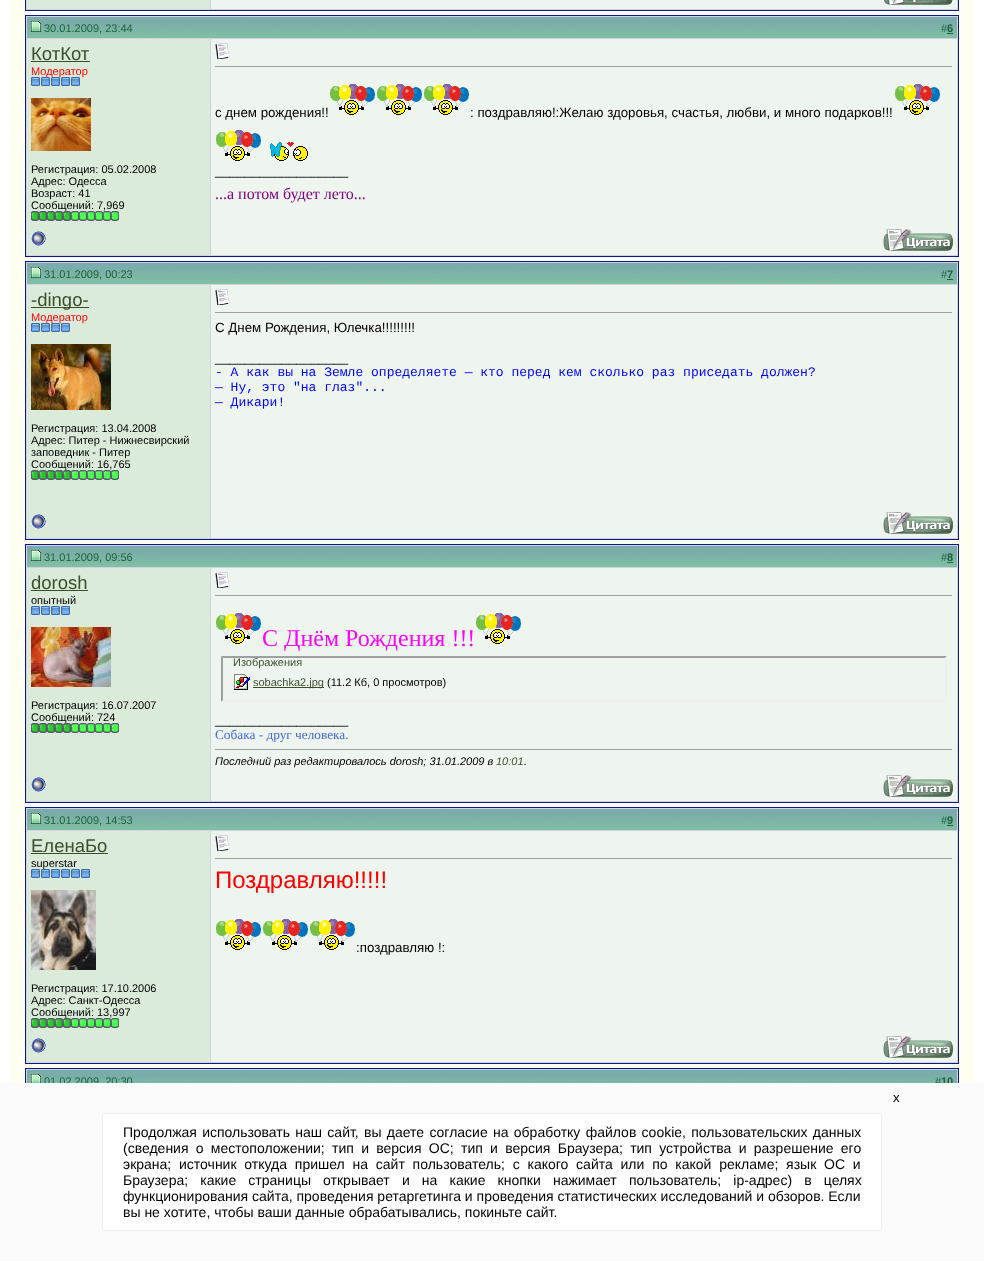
<svg xmlns="http://www.w3.org/2000/svg" width="984" height="1261" viewBox="0 0 984 1261">
  <rect width="100%" height="100%" fill="rgb(255,255,255)"/>
  <rect x="10" y="0" width="964" height="1083" fill="rgb(255,255,241)"/>
  <rect x="25.5" y="-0.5" width="933" height="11" fill="none" stroke="rgb(11,25,140)"/>
  <rect x="27" y="0" width="183" height="9" fill="rgb(218,235,218)"/>
  <rect x="210" y="0" width="1" height="10" fill="rgb(209,209,225)"/>
  <rect x="26" y="9" width="185" height="1" fill="rgb(209,209,225)"/>
  <rect x="26" y="0" width="1" height="10" fill="rgb(209,209,225)"/>
  <rect x="211" y="0" width="746" height="9" fill="rgb(238,244,238)"/>
  <rect x="957" y="0" width="1" height="10" fill="rgb(209,209,225)"/>
  <rect x="211" y="9" width="747" height="1" fill="rgb(209,209,225)"/>
  <image x="884" y="0" width="69" height="5" href="pic1.png"/>
  <rect x="25.5" y="15.5" width="933" height="241" fill="none" stroke="rgb(11,25,140)"/>
  <image x="27" y="17" width="184" height="21" href="pic2.png"/>
  <rect x="26" y="16" width="932" height="1" fill="rgb(209,209,225)"/>
  <rect x="26" y="38" width="185" height="1" fill="rgb(209,209,225)"/>
  <rect x="26" y="16" width="1" height="209" fill="rgb(209,209,225)"/>
  <image x="31" y="21" width="10" height="11" href="pic3.png"/>
  <text x="44" y="32" font-family="Liberation Sans" font-size="11" fill="rgb(26,101,60)">30.01.2009, 23:44</text>
  <image x="211" y="17" width="746" height="21" href="pic4.png"/>
  <rect x="957" y="16" width="1" height="240" fill="rgb(209,209,225)"/>
  <rect x="211" y="38" width="747" height="1" fill="rgb(209,209,225)"/>
  <text x="941" y="32" font-family="Liberation Sans" font-size="11" fill="rgb(26,101,60)">#</text>
  <text x="947" y="32" font-family="Liberation Sans" font-size="11" font-weight="bold" fill="rgb(26,101,60)">6</text>
  <rect x="947" y="33" width="6" height="1" fill="rgb(26,101,60)"/>
  <rect x="27" y="39" width="183" height="216" fill="rgb(218,235,218)"/>
  <rect x="210" y="39" width="1" height="217" fill="rgb(209,209,225)"/>
  <text x="31" y="60" font-family="Liberation Sans" font-size="18.5" fill="rgb(61,78,45)">КотКот</text>
  <rect x="31" y="61" width="59" height="1" fill="rgb(61,78,45)"/>
  <text x="31" y="75" font-family="Liberation Sans" font-size="11" fill="rgb(255,0,0)">Модератор</text>
  <image x="31" y="77" width="49" height="9" href="pic5.png"/>
  <image x="31" y="98" width="60" height="53" href="pic6.png"/>
  <g font-family="Liberation Sans" font-size="11" fill="rgb(0,0,0)">
    <text>
      <tspan x="31" y="173">Регистрация: 05.02.2008</tspan>
      <tspan x="31" y="185">Адрес: Одесса</tspan>
      <tspan x="31" y="197">Возраст: 41</tspan>
      <tspan x="31" y="209">Сообщений: 7,969</tspan>
    </text>
  </g>
  <image x="31" y="211" width="8" height="10" href="pic7.png"/>
  <image x="39" y="211" width="8" height="10" href="pic7.png"/>
  <image x="47" y="211" width="8" height="10" href="pic7.png"/>
  <image x="55" y="211" width="8" height="10" href="pic7.png"/>
  <image x="63" y="211" width="8" height="10" href="pic7.png"/>
  <image x="71" y="211" width="8" height="10" href="pic8.png"/>
  <image x="79" y="211" width="8" height="10" href="pic8.png"/>
  <image x="87" y="211" width="8" height="10" href="pic8.png"/>
  <image x="95" y="211" width="8" height="10" href="pic8.png"/>
  <image x="103" y="211" width="8" height="10" href="pic8.png"/>
  <image x="111" y="211" width="8" height="10" href="pic8.png"/>
  <rect x="211" y="39" width="746" height="216" fill="rgb(238,244,238)"/>
  <image x="215" y="43" width="15" height="16" href="pic9.png"/>
  <rect x="215" y="66" width="738" height="1" fill="rgb(159,159,159)"/>
  <rect x="952" y="66" width="1" height="1" fill="rgb(238,238,238)"/>
  <text x="215" y="117" font-family="Liberation Sans" font-size="13.3" fill="rgb(0,0,0)">с днем рождения!!</text>
  <image x="330" y="84" width="45" height="31" href="pic10.png"/>
  <image x="377" y="84" width="45" height="31" href="pic10.png"/>
  <image x="424" y="84" width="45" height="31" href="pic10.png"/>
  <text x="470" y="117" font-family="Liberation Sans" font-size="13.3" fill="rgb(0,0,0)">: поздравляю!:Желаю здоровья, счастья, любви, и много подарков!!!</text>
  <image x="895" y="84" width="45" height="31" href="pic10.png"/>
  <image x="216" y="130" width="45" height="31" href="pic10.png"/>
  <image x="270" y="142" width="38" height="19" href="pic11.png"/>
  <text x="215" y="175" font-family="Liberation Sans" font-size="13.3" fill="rgb(0,0,0)">__________________</text>
  <text x="215" y="199" font-family="Liberation Serif" font-size="16" fill="rgb(128,0,128)">...а потом будет лето...</text>
  <rect x="26" y="255" width="932" height="1" fill="rgb(209,209,225)"/>
  <rect x="26" y="225" width="1" height="31" fill="rgb(209,209,225)"/>
  <image x="31" y="231" width="15" height="15" href="pic12.png"/>
  <image x="883" y="229" width="70" height="22" href="pic13.png"/>
  <rect x="25.5" y="261.5" width="933" height="278" fill="none" stroke="rgb(11,25,140)"/>
  <image x="27" y="263" width="184" height="21" href="pic2.png"/>
  <rect x="26" y="262" width="932" height="1" fill="rgb(209,209,225)"/>
  <rect x="26" y="284" width="185" height="1" fill="rgb(209,209,225)"/>
  <rect x="26" y="262" width="1" height="246" fill="rgb(209,209,225)"/>
  <image x="31" y="267" width="10" height="11" href="pic3.png"/>
  <text x="44" y="278" font-family="Liberation Sans" font-size="11" fill="rgb(26,101,60)">31.01.2009, 00:23</text>
  <image x="211" y="263" width="746" height="21" href="pic4.png"/>
  <rect x="957" y="262" width="1" height="277" fill="rgb(209,209,225)"/>
  <rect x="211" y="284" width="747" height="1" fill="rgb(209,209,225)"/>
  <text x="941" y="278" font-family="Liberation Sans" font-size="11" fill="rgb(26,101,60)">#</text>
  <text x="947" y="278" font-family="Liberation Sans" font-size="11" font-weight="bold" fill="rgb(26,101,60)">7</text>
  <rect x="947" y="279" width="6" height="1" fill="rgb(26,101,60)"/>
  <rect x="27" y="285" width="183" height="253" fill="rgb(218,235,218)"/>
  <rect x="210" y="285" width="1" height="254" fill="rgb(209,209,225)"/>
  <rect x="31" y="307" width="58" height="1" fill="rgb(61,78,45)"/>
  <text x="31" y="306" font-family="Liberation Sans" font-size="18.5" fill="rgb(61,78,45)">-dingo-</text>
  <text x="31" y="321" font-family="Liberation Sans" font-size="11" fill="rgb(255,0,0)">Модератор</text>
  <image x="31" y="323" width="39" height="9" href="pic14.png"/>
  <image x="31" y="344" width="80" height="66" href="pic15.png"/>
  <g font-family="Liberation Sans" font-size="11" fill="rgb(0,0,0)">
    <text>
      <tspan x="31" y="432">Регистрация: 13.04.2008</tspan>
      <tspan x="31" y="444">Адрес: Питер - Нижнесвирский</tspan>
      <tspan x="31" y="456">заповедник - Питер</tspan>
      <tspan x="31" y="468">Сообщений: 16,765</tspan>
    </text>
  </g>
  <image x="31" y="470" width="8" height="10" href="pic7.png"/>
  <image x="39" y="470" width="8" height="10" href="pic7.png"/>
  <image x="47" y="470" width="8" height="10" href="pic7.png"/>
  <image x="55" y="470" width="8" height="10" href="pic7.png"/>
  <image x="63" y="470" width="8" height="10" href="pic7.png"/>
  <image x="71" y="470" width="8" height="10" href="pic8.png"/>
  <image x="79" y="470" width="8" height="10" href="pic8.png"/>
  <image x="87" y="470" width="8" height="10" href="pic8.png"/>
  <image x="95" y="470" width="8" height="10" href="pic8.png"/>
  <image x="103" y="470" width="8" height="10" href="pic8.png"/>
  <image x="111" y="470" width="8" height="10" href="pic8.png"/>
  <rect x="211" y="285" width="746" height="253" fill="rgb(238,244,238)"/>
  <image x="215" y="289" width="15" height="16" href="pic9.png"/>
  <rect x="215" y="312" width="738" height="1" fill="rgb(159,159,159)"/>
  <rect x="952" y="312" width="1" height="1" fill="rgb(238,238,238)"/>
  <g font-family="Liberation Sans" font-size="13.3" fill="rgb(0,0,0)">
    <text x="215" y="332">С Днем Рождения, Юлечка!!!!!!!!!</text>
    <text x="215" y="362">__________________</text>
  </g>
  <g font-family="Liberation Mono" font-size="13" fill="rgb(0,0,255)">
    <text>
      <tspan x="215" y="376">- А как вы на Земле определяете — кто перед кем сколько раз приседать должен?</tspan>
      <tspan x="215" y="391">— Ну, это "на глаз"...</tspan>
      <tspan x="215" y="406">— Дикари!</tspan>
    </text>
  </g>
  <rect x="26" y="538" width="932" height="1" fill="rgb(209,209,225)"/>
  <rect x="26" y="508" width="1" height="31" fill="rgb(209,209,225)"/>
  <image x="31" y="514" width="15" height="15" href="pic12.png"/>
  <image x="883" y="512" width="70" height="22" href="pic13.png"/>
  <rect x="25.5" y="544.5" width="933" height="258" fill="none" stroke="rgb(11,25,140)"/>
  <image x="27" y="546" width="184" height="21" href="pic2.png"/>
  <rect x="26" y="545" width="932" height="1" fill="rgb(209,209,225)"/>
  <rect x="26" y="567" width="185" height="1" fill="rgb(209,209,225)"/>
  <rect x="26" y="545" width="1" height="226" fill="rgb(209,209,225)"/>
  <image x="31" y="550" width="10" height="11" href="pic3.png"/>
  <text x="44" y="561" font-family="Liberation Sans" font-size="11" fill="rgb(26,101,60)">31.01.2009, 09:56</text>
  <image x="211" y="546" width="746" height="21" href="pic4.png"/>
  <rect x="957" y="545" width="1" height="257" fill="rgb(209,209,225)"/>
  <rect x="211" y="567" width="747" height="1" fill="rgb(209,209,225)"/>
  <text x="941" y="561" font-family="Liberation Sans" font-size="11" fill="rgb(26,101,60)">#</text>
  <text x="947" y="561" font-family="Liberation Sans" font-size="11" font-weight="bold" fill="rgb(26,101,60)">8</text>
  <rect x="947" y="562" width="6" height="1" fill="rgb(26,101,60)"/>
  <rect x="27" y="568" width="183" height="233" fill="rgb(218,235,218)"/>
  <rect x="210" y="568" width="1" height="234" fill="rgb(209,209,225)"/>
  <text x="31" y="589" font-family="Liberation Sans" font-size="18.5" fill="rgb(61,78,45)">dorosh</text>
  <rect x="31" y="590" width="57" height="1" fill="rgb(61,78,45)"/>
  <text x="31" y="604" font-family="Liberation Sans" font-size="11" fill="rgb(0,0,0)">опытный</text>
  <image x="31" y="606" width="39" height="9" href="pic16.png"/>
  <image x="31" y="627" width="80" height="60" href="pic17.png"/>
  <g font-family="Liberation Sans" font-size="11" fill="rgb(0,0,0)">
    <text>
      <tspan x="31" y="709">Регистрация: 16.07.2007</tspan>
      <tspan x="31" y="721">Сообщений: 724</tspan>
    </text>
  </g>
  <image x="31" y="723" width="8" height="10" href="pic7.png"/>
  <image x="39" y="723" width="8" height="10" href="pic7.png"/>
  <image x="47" y="723" width="8" height="10" href="pic7.png"/>
  <image x="55" y="723" width="8" height="10" href="pic7.png"/>
  <image x="63" y="723" width="8" height="10" href="pic7.png"/>
  <image x="71" y="723" width="8" height="10" href="pic8.png"/>
  <image x="79" y="723" width="8" height="10" href="pic8.png"/>
  <image x="87" y="723" width="8" height="10" href="pic8.png"/>
  <image x="95" y="723" width="8" height="10" href="pic8.png"/>
  <image x="103" y="723" width="8" height="10" href="pic8.png"/>
  <image x="111" y="723" width="8" height="10" href="pic8.png"/>
  <rect x="211" y="568" width="746" height="233" fill="rgb(238,244,238)"/>
  <image x="215" y="572" width="15" height="16" href="pic9.png"/>
  <rect x="215" y="595" width="738" height="1" fill="rgb(159,159,159)"/>
  <rect x="952" y="595" width="1" height="1" fill="rgb(238,238,238)"/>
  <image x="216" y="613" width="45" height="31" href="pic10.png"/>
  <text x="262" y="646" font-family="Liberation Serif" font-size="24" fill="rgb(255,0,255)">С Днём Рождения !!!</text>
  <image x="476" y="613" width="45" height="31" href="pic10.png"/>
  <path d="M221 656H947L945 658H223Z" fill="rgb(159,159,159)"/>
  <path d="M947 656V702L945 700V658Z" fill="rgb(239,239,239)"/>
  <path d="M947 702H221L223 700H945Z" fill="rgb(239,239,239)"/>
  <path d="M221 702V656L223 658V700Z" fill="rgb(159,159,159)"/>
  <text x="233" y="666" font-family="Liberation Sans" font-size="11" fill="rgb(61,78,45)">Изображения</text>
  <image x="234" y="674" width="16" height="16" href="pic18.png"/>
  <rect x="253" y="687" width="71" height="1" fill="rgb(61,78,45)"/>
  <text x="253" y="686" font-family="Liberation Sans" font-size="11" fill="rgb(61,78,45)">sobachka2.jpg</text>
  <text x="327" y="686" font-family="Liberation Sans" font-size="11" fill="rgb(0,0,0)">(11.2 Кб, 0 просмотров)</text>
  <text x="215" y="724" font-family="Liberation Sans" font-size="13.3" fill="rgb(0,0,0)">__________________</text>
  <text x="215" y="739" font-family="Liberation Serif" font-size="13.3" fill="rgb(65,105,225)">Собака - друг человека.</text>
  <rect x="215" y="749" width="738" height="1" fill="rgb(159,159,159)"/>
  <rect x="952" y="749" width="1" height="1" fill="rgb(238,238,238)"/>
  <text x="215" y="765" font-family="Liberation Sans" font-size="11" font-style="italic" fill="rgb(0,0,0)">Последний раз редактировалось dorosh; 31.01.2009 в</text>
  <text x="496" y="765" font-family="Liberation Sans" font-size="11" font-style="italic" fill="rgb(61,78,45)">10:01</text>
  <text x="524" y="765" font-family="Liberation Sans" font-size="11" font-style="italic" fill="rgb(0,0,0)">.</text>
  <rect x="26" y="801" width="932" height="1" fill="rgb(209,209,225)"/>
  <rect x="26" y="771" width="1" height="31" fill="rgb(209,209,225)"/>
  <image x="31" y="777" width="15" height="15" href="pic12.png"/>
  <image x="883" y="775" width="70" height="22" href="pic13.png"/>
  <rect x="25.5" y="807.5" width="933" height="256" fill="none" stroke="rgb(11,25,140)"/>
  <image x="27" y="809" width="184" height="21" href="pic2.png"/>
  <rect x="26" y="808" width="932" height="1" fill="rgb(209,209,225)"/>
  <rect x="26" y="830" width="185" height="1" fill="rgb(209,209,225)"/>
  <rect x="26" y="808" width="1" height="224" fill="rgb(209,209,225)"/>
  <image x="31" y="813" width="10" height="11" href="pic3.png"/>
  <text x="44" y="824" font-family="Liberation Sans" font-size="11" fill="rgb(26,101,60)">31.01.2009, 14:53</text>
  <image x="211" y="809" width="746" height="21" href="pic4.png"/>
  <rect x="957" y="808" width="1" height="255" fill="rgb(209,209,225)"/>
  <rect x="211" y="830" width="747" height="1" fill="rgb(209,209,225)"/>
  <text x="941" y="824" font-family="Liberation Sans" font-size="11" fill="rgb(26,101,60)">#</text>
  <text x="947" y="824" font-family="Liberation Sans" font-size="11" font-weight="bold" fill="rgb(26,101,60)">9</text>
  <rect x="947" y="825" width="6" height="1" fill="rgb(26,101,60)"/>
  <rect x="27" y="831" width="183" height="231" fill="rgb(218,235,218)"/>
  <rect x="210" y="831" width="1" height="232" fill="rgb(209,209,225)"/>
  <text x="31" y="852" font-family="Liberation Sans" font-size="18.5" fill="rgb(61,78,45)">ЕленаБо</text>
  <rect x="31" y="853" width="77" height="1" fill="rgb(61,78,45)"/>
  <text x="31" y="867" font-family="Liberation Sans" font-size="11" fill="rgb(0,0,0)">superstar</text>
  <image x="31" y="869" width="59" height="9" href="pic19.png"/>
  <image x="31" y="890" width="65" height="80" href="pic20.png"/>
  <g font-family="Liberation Sans" font-size="11" fill="rgb(0,0,0)">
    <text>
      <tspan x="31" y="992">Регистрация: 17.10.2006</tspan>
      <tspan x="31" y="1004">Адрес: Санкт-Одесса</tspan>
      <tspan x="31" y="1016">Сообщений: 13,997</tspan>
    </text>
  </g>
  <image x="31" y="1018" width="8" height="10" href="pic7.png"/>
  <image x="39" y="1018" width="8" height="10" href="pic7.png"/>
  <image x="47" y="1018" width="8" height="10" href="pic7.png"/>
  <image x="55" y="1018" width="8" height="10" href="pic7.png"/>
  <image x="63" y="1018" width="8" height="10" href="pic7.png"/>
  <image x="71" y="1018" width="8" height="10" href="pic8.png"/>
  <image x="79" y="1018" width="8" height="10" href="pic8.png"/>
  <image x="87" y="1018" width="8" height="10" href="pic8.png"/>
  <image x="95" y="1018" width="8" height="10" href="pic8.png"/>
  <image x="103" y="1018" width="8" height="10" href="pic8.png"/>
  <image x="111" y="1018" width="8" height="10" href="pic8.png"/>
  <rect x="211" y="831" width="746" height="231" fill="rgb(238,244,238)"/>
  <image x="215" y="835" width="15" height="16" href="pic9.png"/>
  <rect x="215" y="858" width="738" height="1" fill="rgb(159,159,159)"/>
  <rect x="952" y="858" width="1" height="1" fill="rgb(238,238,238)"/>
  <text x="215" y="888" font-family="Liberation Sans" font-size="24" fill="rgb(255,0,0)">Поздравляю!!!!!</text>
  <image x="216" y="919" width="45" height="31" href="pic10.png"/>
  <image x="263" y="919" width="45" height="31" href="pic10.png"/>
  <image x="310" y="919" width="45" height="31" href="pic10.png"/>
  <text x="356" y="952" font-family="Liberation Sans" font-size="13.3" fill="rgb(0,0,0)">:поздравляю !:</text>
  <rect x="26" y="1062" width="932" height="1" fill="rgb(209,209,225)"/>
  <rect x="26" y="1032" width="1" height="31" fill="rgb(209,209,225)"/>
  <image x="31" y="1038" width="15" height="15" href="pic12.png"/>
  <image x="883" y="1036" width="70" height="22" href="pic13.png"/>
  <rect x="25.5" y="1068.5" width="933" height="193" fill="none" stroke="rgb(11,25,140)"/>
  <image x="27" y="1070" width="184" height="13" href="pic21.png"/>
  <rect x="26" y="1069" width="932" height="1" fill="rgb(209,209,225)"/>
  <rect x="26" y="1069" width="1" height="14" fill="rgb(209,209,225)"/>
  <image x="31" y="1074" width="10" height="9" href="pic22.png"/>
  <text x="44" y="1085" font-family="Liberation Sans" font-size="11" fill="rgb(26,101,60)">01.02.2009, 20:30</text>
  <image x="211" y="1070" width="746" height="13" href="pic23.png"/>
  <rect x="957" y="1069" width="1" height="14" fill="rgb(209,209,225)"/>
  <text x="935" y="1085" font-family="Liberation Sans" font-size="11" fill="rgb(26,101,60)">#</text>
  <text x="941" y="1085" font-family="Liberation Sans" font-size="11" font-weight="bold" fill="rgb(26,101,60)">10</text>
  <rect x="0" y="1083" width="984" height="178" fill="rgb(250,250,250)"/>
  <rect x="102.5" y="1113.5" width="779" height="117" rx="3.5" fill="rgb(255,255,255)" stroke="rgb(238,238,238)"/>
  <text x="893" y="1102" font-family="Liberation Sans" font-size="13.3" fill="rgb(0,0,0)">x</text>
  <g font-family="Liberation Sans" font-size="14" fill="rgb(0,0,0)">
    <text>
      <tspan x="123" y="1137" word-spacing="1.4">Продолжая использовать наш сайт, вы даете согласие на обработку файлов cookie, пользовательских данных</tspan>
      <tspan x="123" y="1153" word-spacing="3.4">(сведения о местоположении; тип и версия ОС; тип и версия Браузера; тип устройства и разрешение его</tspan>
      <tspan x="123" y="1169" word-spacing="3.9">экрана; источник откуда пришел на сайт пользователь; с какого сайта или по какой рекламе; язык ОС и</tspan>
      <tspan x="123" y="1185" word-spacing="8.25">Браузера; какие страницы открывает и на какие кнопки нажимает пользователь; ip-адрес) в целях</tspan>
      <tspan x="123" y="1201">функционирования сайта, проведения ретаргетинга и проведения статистических исследований и обзоров. Если</tspan>
      <tspan x="123" y="1217">вы не хотите, чтобы ваши данные обрабатывались, покиньте сайт.</tspan>
    </text>
  </g>
</svg>
